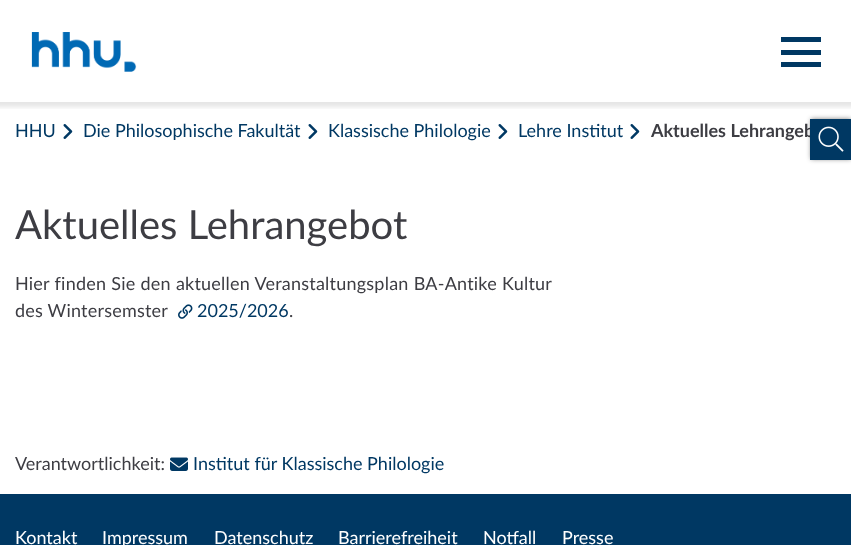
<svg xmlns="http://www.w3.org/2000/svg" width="851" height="545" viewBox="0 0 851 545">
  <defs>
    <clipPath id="clip1"><rect x="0" y="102" width="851" height="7"/></clipPath>
  </defs>
  <rect width="100%" height="100%" fill="rgb(255,255,255)"/>
  <g clip-path="url(#clip1)">
    <rect x="-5" y="-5" width="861" height="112" fill="rgba(0,0,0,0.1)" filter="blur(2.5px)"/>
  </g>
  <image x="31" y="32" width="106" height="40" href="pic1.png"/>
  <rect x="781" y="37" width="40" height="5" fill="rgb(0,56,99)"/>
  <rect x="781" y="50" width="40" height="5" fill="rgb(0,56,99)"/>
  <rect x="781" y="62" width="40" height="5" fill="rgb(0,56,99)"/>
  <text x="15" y="137" font-family="Lato" font-size="18" fill="rgb(0,56,99)">HHU</text>
  <image x="63" y="124" width="10" height="15" href="pic2.png"/>
  <text x="83" y="137" font-family="Lato" font-size="18" fill="rgb(0,56,99)">Die Philosophische Fakultät</text>
  <image x="308" y="124" width="10" height="15" href="pic2.png"/>
  <text x="328" y="137" font-family="Lato" font-size="18" fill="rgb(0,56,99)">Klassische Philologie</text>
  <image x="498" y="124" width="10" height="15" href="pic2.png"/>
  <text x="518" y="137" font-family="Lato" font-size="18" fill="rgb(0,56,99)">Lehre Institut</text>
  <image x="630" y="124" width="10" height="15" href="pic2.png"/>
  <text x="651" y="137" font-family="Lato" font-size="18" font-weight="bold" fill="rgb(61,61,67)">Aktuelles Lehrangeb</text>
  <text x="15" y="239" font-family="Lato" font-size="40" fill="rgb(61,61,67)">Aktuelles Lehrangebot</text>
  <g font-family="Lato" font-size="18" letter-spacing="0.22" fill="rgb(61,61,67)">
    <text>
      <tspan x="15" y="290" word-spacing="0.25">Hier finden Sie den aktuellen Veranstaltungsplan BA-Antike Kultur</tspan>
      <tspan x="15" y="317">des Wintersemster</tspan>
    </text>
  </g>
  <image x="178" y="304" width="15" height="15" href="pic3.png"/>
  <text x="197" y="317" font-family="Lato" font-size="18" fill="rgb(0,56,99)">2025/2026</text>
  <text x="289" y="317" font-family="Lato" font-size="18" letter-spacing="0.22" fill="rgb(61,61,67)">.</text>
  <text x="15" y="470" font-family="Lato" font-size="18" fill="rgb(61,61,67)">Verantwortlichkeit:</text>
  <image x="170" y="457" width="18" height="14" href="pic4.png"/>
  <text x="193" y="470" font-family="Lato" font-size="18" fill="rgb(0,56,99)">Institut für Klassische Philologie</text>
  <rect x="811" y="119" width="40" height="40" fill="rgba(0,0,0,0.5)" filter="blur(2.5px)"/>
  <rect x="810" y="119" width="41" height="41" fill="rgb(0,56,99)"/>
  <image x="818" y="126" width="26" height="26" href="pic5.png"/>
  <rect x="0" y="494" width="851" height="51" fill="rgb(0,56,99)"/>
  <g font-family="Lato" font-size="18" fill="rgb(255,255,255)">
    <text x="15" y="544">Kontakt</text>
    <text x="102" y="544">Impressum</text>
    <text x="214" y="544">Datenschutz</text>
    <text x="338" y="544">Barrierefreiheit</text>
    <text x="483" y="544">Notfall</text>
    <text x="562" y="544">Presse</text>
  </g>
</svg>
